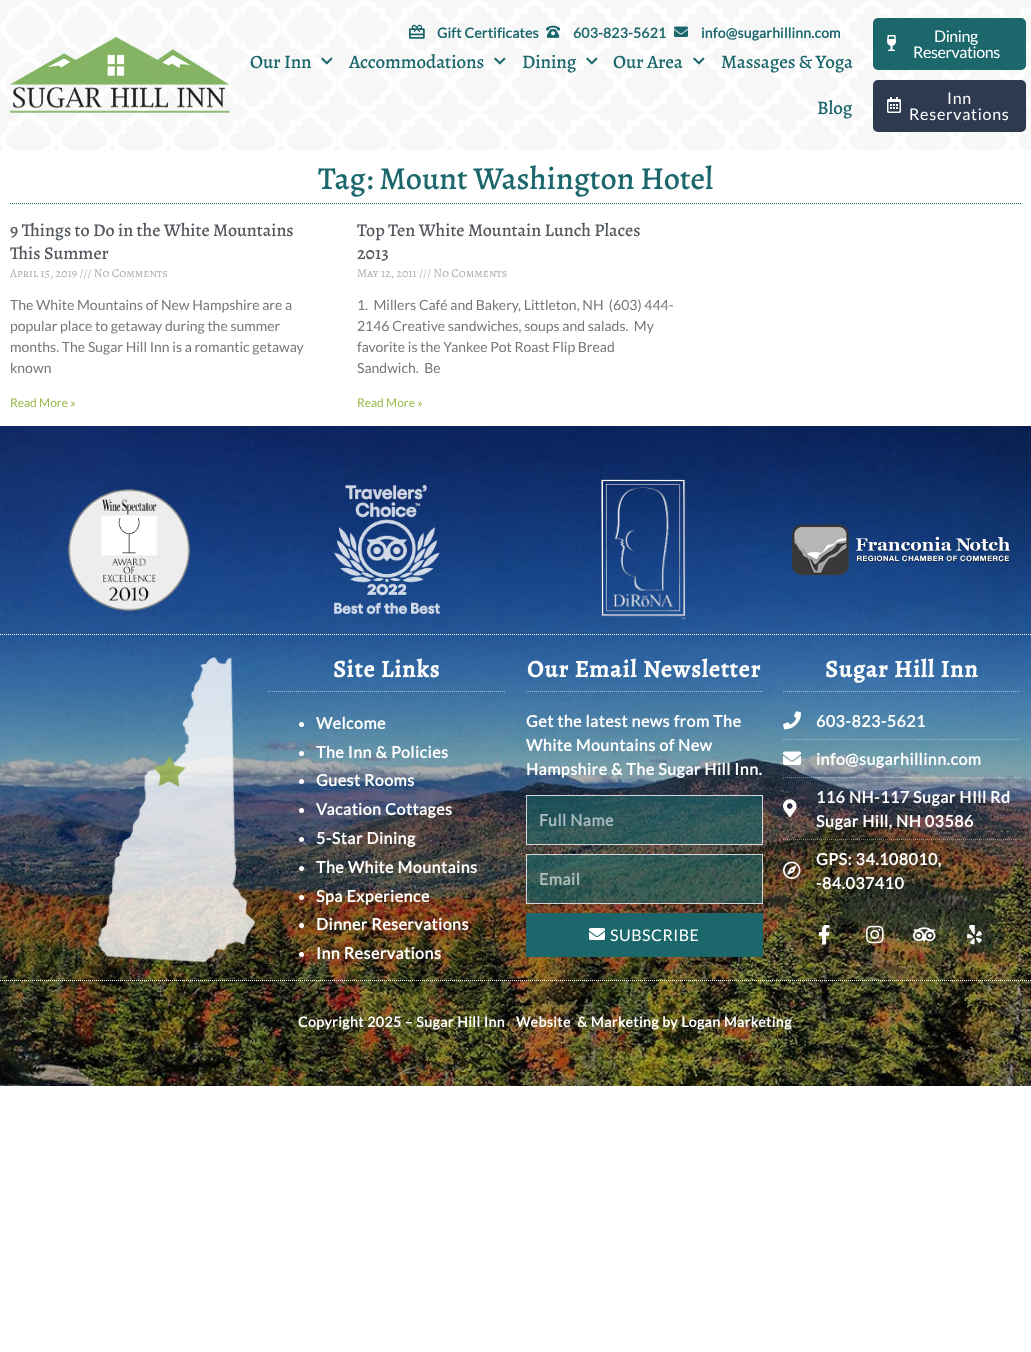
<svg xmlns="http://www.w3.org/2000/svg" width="1031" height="1352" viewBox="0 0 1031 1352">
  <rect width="100%" height="100%" fill="rgb(255,255,255)"/>
  <image x="0" y="0" width="1031" height="150" href="pic1.png"/>
  <image x="10" y="36" width="220" height="77" href="pic2.png"/>
  <image x="409" y="24" width="16" height="15" href="pic3.png"/>
  <text x="437" y="38" font-family="Lato" font-size="14" font-weight="bold" letter-spacing="0.2" fill="rgb(27,103,107)">Gift Certificates</text>
  <image x="546" y="25" width="15" height="13" href="pic4.png"/>
  <text x="573" y="38" font-family="Lato" font-size="14" font-weight="bold" letter-spacing="0.2" fill="rgb(27,103,107)">603-823-5621</text>
  <image x="674" y="26" width="14" height="11" href="pic5.png"/>
  <text x="701" y="38" font-family="Lato" font-size="14" font-weight="bold" letter-spacing="0.2" fill="rgb(27,103,107)">info@sugarhillinn.com</text>
  <text x="250" y="68" font-family="Alegreya" font-size="19" font-weight="500" letter-spacing="-0.1" fill="rgb(27,103,107)">Our Inn</text>
  <image x="321" y="57" width="12" height="8" href="pic6.png"/>
  <text x="349" y="68" font-family="Alegreya" font-size="19" font-weight="500" letter-spacing="-0.1" fill="rgb(27,103,107)">Accommodations</text>
  <image x="494" y="57" width="12" height="8" href="pic7.png"/>
  <text x="522" y="68" font-family="Alegreya" font-size="19" font-weight="500" letter-spacing="-0.1" fill="rgb(27,103,107)">Dining</text>
  <image x="586" y="57" width="12" height="8" href="pic8.png"/>
  <text x="613" y="68" font-family="Alegreya" font-size="19" font-weight="500" letter-spacing="-0.1" fill="rgb(27,103,107)">Our Area</text>
  <image x="693" y="57" width="12" height="8" href="pic9.png"/>
  <g font-family="Alegreya" font-size="19" font-weight="500" letter-spacing="-0.1" fill="rgb(27,103,107)">
    <text x="721" y="68">Massages &amp; Yoga</text>
    <text x="817" y="114">Blog</text>
  </g>
  <rect x="873" y="18" width="153" height="52" rx="5" fill="rgb(27,103,107)"/>
  <image x="887" y="35" width="9" height="16" href="pic10.png"/>
  <g font-family="Lato" font-size="16" letter-spacing="-0.4" fill="rgb(255,255,255)">
    <text x="934" y="42">Dining</text>
    <text x="913" y="58">Reservations</text>
  </g>
  <rect x="873" y="80" width="153" height="52" rx="5" fill="rgb(46,58,80)"/>
  <image x="887" y="97" width="14" height="16" href="pic11.png"/>
  <g font-family="Lato" font-size="16" letter-spacing="0.75" fill="rgb(255,255,255)">
    <text x="947" y="104">Inn</text>
    <text x="909" y="120">Reservations</text>
  </g>
  <path d="M10 203.5H1021" fill="none" stroke="rgb(27,103,107)" stroke-dasharray="1 1"/>
  <text x="318" y="189" font-family="Alegreya" font-size="32" font-weight="500" fill="rgb(27,103,107)">Tag: Mount Washington Hotel</text>
  <g font-family="Alegreya" font-size="18" font-weight="500" fill="rgb(84,89,95)">
    <text>
      <tspan x="10" y="236">9 Things to Do in the White Mountains</tspan>
      <tspan x="10" y="259">This Summer</tspan>
    </text>
  </g>
  <text x="10" y="277" font-family="Alegreya SC" font-size="12" fill="rgb(173,173,173)">April 15, 2019 /// No Comments</text>
  <g font-family="Lato" font-size="14" fill="rgb(119,119,119)">
    <text>
      <tspan x="10" y="310">The White Mountains of New Hampshire are a</tspan>
      <tspan x="10" y="331">popular place to getaway during the summer</tspan>
      <tspan x="10" y="352">months. The Sugar Hill Inn is a romantic getaway</tspan>
      <tspan x="10" y="373">known</tspan>
    </text>
  </g>
  <text x="10" y="407" font-family="Lato" font-size="12" fill="rgb(154,185,76)">Read More »</text>
  <g font-family="Alegreya" font-size="18" font-weight="500" fill="rgb(84,89,95)">
    <text>
      <tspan x="357" y="236">Top Ten White Mountain Lunch Places</tspan>
      <tspan x="357" y="259">2013</tspan>
    </text>
  </g>
  <text x="357" y="277" font-family="Alegreya SC" font-size="12" fill="rgb(173,173,173)">May 12, 2011 /// No Comments</text>
  <g font-family="Lato" font-size="14" fill="rgb(119,119,119)">
    <text xml:space="preserve"><tspan x="357" y="310">1.  Millers Café and Bakery, Littleton, NH  (603) 444-</tspan><tspan x="357" y="331">2146 Creative sandwiches, soups and salads.  My</tspan><tspan x="357" y="352">favorite is the Yankee Pot Roast Flip Bread</tspan><tspan x="357" y="373">Sandwich.  Be</tspan></text>
  </g>
  <text x="357" y="407" font-family="Lato" font-size="12" fill="rgb(154,185,76)">Read More »</text>
  <image x="0" y="426" width="1031" height="660" href="pic12.png"/>
  <image x="68" y="489" width="122" height="122" href="pic13.png"/>
  <image x="334" y="485" width="106" height="129" href="pic14.png"/>
  <image x="601" y="479" width="85" height="141" href="pic15.png"/>
  <image x="792" y="524" width="219" height="52" href="pic16.png"/>
  <path d="M0 634.5H1031" fill="none" stroke="rgb(255,255,255)" stroke-dasharray="1 1"/>
  <path d="M0 980.5H1031" fill="none" stroke="rgb(255,255,255)" stroke-dasharray="1 1"/>
  <image x="98" y="657" width="157" height="306" href="pic17.png"/>
  <path d="M268 691.5H506" fill="none" stroke="rgba(255,255,255,0.5)" stroke-dasharray="1 1"/>
  <text x="333" y="677" font-family="Alegreya" font-size="24" font-weight="bold" letter-spacing="1" fill="rgb(255,255,255)">Site Links</text>
  <circle cx="301.5" cy="724.5" r="2.5" fill="rgb(255,255,255)"/>
  <text x="316" y="729" font-family="Lato" font-size="16" font-weight="bold" letter-spacing="0.5" fill="rgb(255,255,255)">Welcome</text>
  <circle cx="301.5" cy="753.5" r="2.5" fill="rgb(255,255,255)"/>
  <text x="316" y="758" font-family="Lato" font-size="16" font-weight="bold" letter-spacing="0.5" fill="rgb(255,255,255)">The Inn &amp; Policies</text>
  <circle cx="301.5" cy="781.5" r="2.5" fill="rgb(255,255,255)"/>
  <text x="316" y="786" font-family="Lato" font-size="16" font-weight="bold" letter-spacing="0.5" fill="rgb(255,255,255)">Guest Rooms</text>
  <circle cx="301.5" cy="810.5" r="2.5" fill="rgb(255,255,255)"/>
  <text x="316" y="815" font-family="Lato" font-size="16" font-weight="bold" letter-spacing="0.5" fill="rgb(255,255,255)">Vacation Cottages</text>
  <circle cx="301.5" cy="839.5" r="2.5" fill="rgb(255,255,255)"/>
  <text x="316" y="844" font-family="Lato" font-size="16" font-weight="bold" letter-spacing="0.5" fill="rgb(255,255,255)">5-Star Dining</text>
  <circle cx="301.5" cy="868.5" r="2.5" fill="rgb(255,255,255)"/>
  <text x="316" y="873" font-family="Lato" font-size="16" font-weight="bold" letter-spacing="0.5" fill="rgb(255,255,255)">The White Mountains</text>
  <circle cx="301.5" cy="897.5" r="2.5" fill="rgb(255,255,255)"/>
  <text x="316" y="902" font-family="Lato" font-size="16" font-weight="bold" letter-spacing="0.5" fill="rgb(255,255,255)">Spa Experience</text>
  <circle cx="301.5" cy="925.5" r="2.5" fill="rgb(255,255,255)"/>
  <text x="316" y="930" font-family="Lato" font-size="16" font-weight="bold" letter-spacing="0.5" fill="rgb(255,255,255)">Dinner Reservations</text>
  <circle cx="301.5" cy="954.5" r="2.5" fill="rgb(255,255,255)"/>
  <text x="316" y="959" font-family="Lato" font-size="16" font-weight="bold" letter-spacing="0.5" fill="rgb(255,255,255)">Inn Reservations</text>
  <path d="M526 691.5H763" fill="none" stroke="rgba(255,255,255,0.5)" stroke-dasharray="1 1"/>
  <text x="527" y="677" font-family="Alegreya" font-size="24" font-weight="bold" letter-spacing="1" fill="rgb(255,255,255)">Our Email Newsletter</text>
  <g font-family="Lato" font-size="16" font-weight="bold" letter-spacing="0.5" fill="rgb(255,255,255)">
    <text>
      <tspan x="526" y="727">Get the latest news from The</tspan>
      <tspan x="526" y="751">White Mountains of New</tspan>
      <tspan x="526" y="775">Hampshire &amp; The Sugar Hill Inn.</tspan>
    </text>
  </g>
  <rect x="526.5" y="795.5" width="236" height="49" fill="rgba(27,103,107,0.61)" stroke="rgb(215,215,217)"/>
  <text x="539" y="826" font-family="Lato" font-size="16" font-weight="bold" letter-spacing="0.5" fill="rgb(169,187,189)">Full Name</text>
  <rect x="526.5" y="854.5" width="236" height="49" fill="rgba(27,103,107,0.61)" stroke="rgb(215,215,217)"/>
  <text x="539" y="885" font-family="Lato" font-size="16" font-weight="bold" letter-spacing="0.5" fill="rgb(176,190,188)">Email</text>
  <rect x="526" y="913" width="237" height="44" fill="rgb(27,103,107)"/>
  <image x="589" y="928" width="16" height="12" href="pic18.png"/>
  <text x="610" y="941" font-family="Lato" font-size="16" letter-spacing="0.5" fill="rgb(255,255,255)">SUBSCRIBE</text>
  <path d="M783 691.5H1021" fill="none" stroke="rgba(255,255,255,0.5)" stroke-dasharray="1 1"/>
  <text x="825" y="677" font-family="Alegreya" font-size="24" font-weight="bold" letter-spacing="1" fill="rgb(255,255,255)">Sugar Hill Inn</text>
  <image x="783" y="711" width="18" height="19" href="pic19.png"/>
  <text x="816" y="727" font-family="Lato" font-size="16" font-weight="bold" letter-spacing="0.5" fill="rgb(255,255,255)">603-823-5621</text>
  <path d="M783 739.5H1021" fill="none" stroke="rgba(255,255,255,0.4)" stroke-dasharray="1 1"/>
  <image x="783" y="751" width="18" height="14" href="pic20.png"/>
  <text x="816" y="765" font-family="Lato" font-size="16" font-weight="bold" letter-spacing="0.5" fill="rgb(255,255,255)">info@sugarhillinn.com</text>
  <path d="M783 777.5H1021" fill="none" stroke="rgba(255,255,255,0.4)" stroke-dasharray="1 1"/>
  <image x="783" y="799" width="14" height="19" href="pic21.png"/>
  <g font-family="Lato" font-size="16" font-weight="bold" letter-spacing="0.5" fill="rgb(255,255,255)">
    <text>
      <tspan x="816" y="803">116 NH-117 Sugar HIll Rd</tspan>
      <tspan x="816" y="827">Sugar Hill, NH 03586</tspan>
    </text>
  </g>
  <path d="M783 839.5H1021" fill="none" stroke="rgba(255,255,255,0.4)" stroke-dasharray="1 1"/>
  <image x="783" y="861" width="18" height="18" href="pic22.png"/>
  <g font-family="Lato" font-size="16" font-weight="bold" letter-spacing="0.5" fill="rgb(255,255,255)">
    <text>
      <tspan x="816" y="865">GPS: 34.108010,</tspan>
      <tspan x="816" y="889">-84.037410</tspan>
    </text>
  </g>
  <image x="818" y="925" width="12" height="20" href="pic23.png"/>
  <image x="866" y="925" width="18" height="19" href="pic24.png"/>
  <image x="913" y="927" width="23" height="15" href="pic25.png"/>
  <image x="967" y="925" width="15" height="20" href="pic26.png"/>
  <g font-family="Lato" font-size="14" font-weight="bold" letter-spacing="0.5" fill="rgb(255,255,255)">
    <text x="298" y="1027">Copyright 2025 – Sugar Hill Inn</text>
    <text x="516" y="1027" xml:space="preserve">Website  &amp; Marketing by Logan Marketing</text>
  </g>
</svg>
